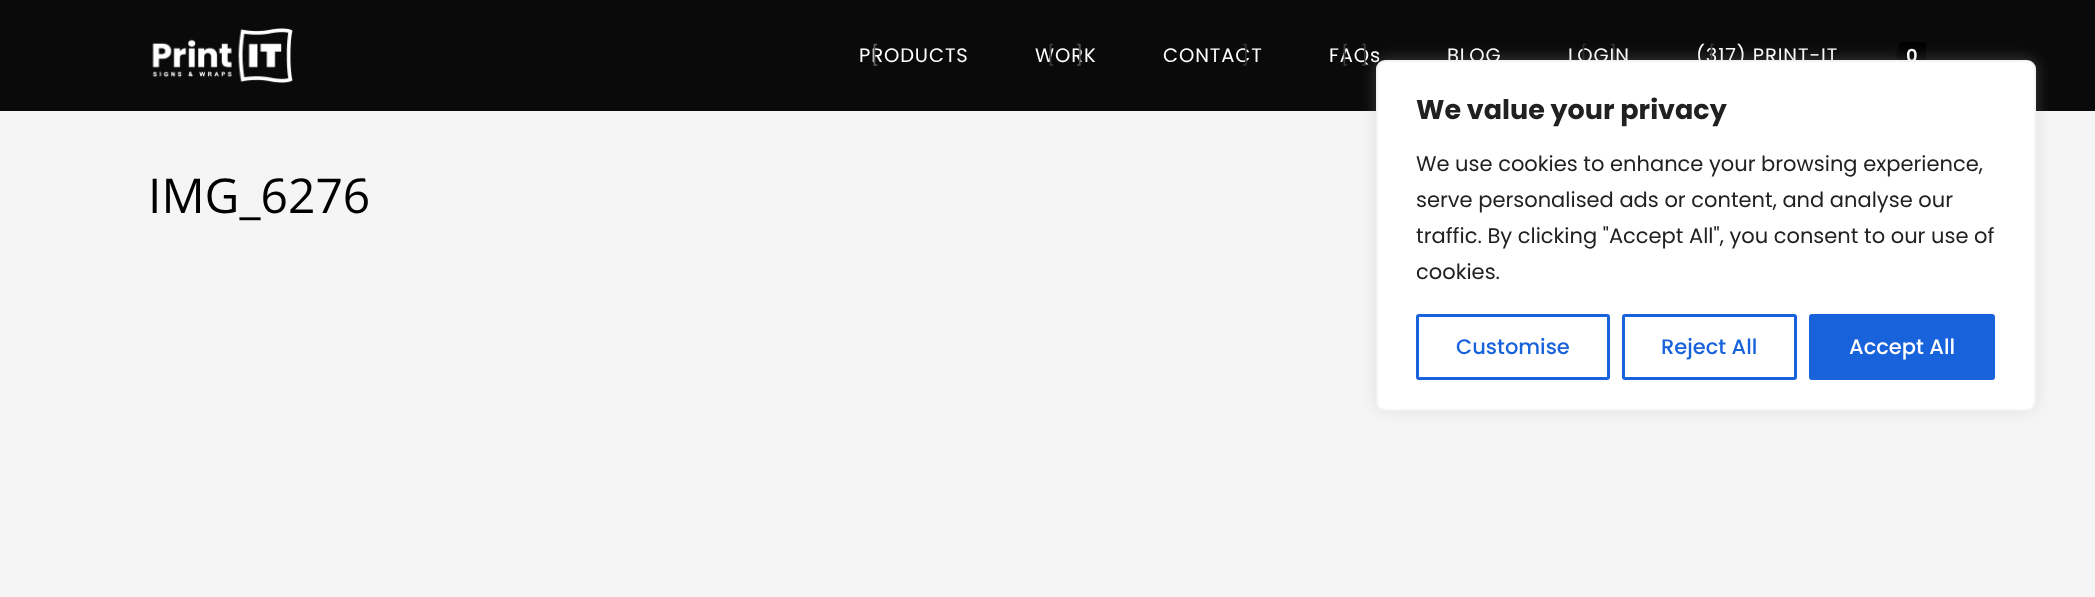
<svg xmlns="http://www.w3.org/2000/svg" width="2095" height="597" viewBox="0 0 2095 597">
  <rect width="100%" height="100%" fill="rgb(245,245,245)"/>
  <rect x="0" y="0" width="2095" height="111" fill="rgb(10,10,10)"/>
  <image x="152" y="28" width="141" height="56" href="pic1.png"/>
  <text x="859" y="62" font-family="Poppins" font-size="19.5" letter-spacing="0.9" fill="rgb(255,255,255)">PRODUCTS</text>
  <text x="871" y="62" font-family="Poppins" font-size="19.5" letter-spacing="0.9" fill="rgb(96,96,96)">[</text>
  <text x="1035" y="62" font-family="Poppins" font-size="19.5" letter-spacing="0.9" fill="rgb(255,255,255)">WORK</text>
  <text x="1047" y="62" font-family="Poppins" font-size="19.5" letter-spacing="0.9" fill="rgb(61,61,61)">[</text>
  <text x="1075" y="62" font-family="Poppins" font-size="19.5" letter-spacing="0.9" fill="rgb(80,80,80)">]</text>
  <text x="1163" y="62" font-family="Poppins" font-size="19.5" letter-spacing="0.9" fill="rgb(255,255,255)">CONTACT</text>
  <text x="1241" y="62" font-family="Poppins" font-size="19.5" letter-spacing="0.9" fill="rgb(52,52,52)">]</text>
  <text x="1329" y="62" font-family="Poppins" font-size="19.5" letter-spacing="0.9" fill="rgb(255,255,255)">FAQs</text>
  <g font-family="Poppins" font-size="19.5" letter-spacing="0.9" fill="rgb(61,61,61)">
    <text x="1341" y="62">[</text>
    <text x="1360" y="62">]</text>
  </g>
  <g font-family="Poppins" font-size="19.5" letter-spacing="0.9" fill="rgb(255,255,255)">
    <text x="1447" y="62">BLOG</text>
    <text x="1568" y="62">LOGIN</text>
  </g>
  <text x="1580" y="62" font-family="Poppins" font-size="19.5" letter-spacing="0.9" fill="rgb(42,42,42)">[</text>
  <text x="1609" y="62" font-family="Poppins" font-size="19.5" letter-spacing="0.9" fill="rgb(52,52,52)">]</text>
  <text x="1696" y="62" font-family="Poppins" font-size="19.5" letter-spacing="0.9" fill="rgb(255,255,255)">(317) PRINT-IT</text>
  <text x="1708" y="62" font-family="Poppins" font-size="19.5" letter-spacing="0.9" fill="rgb(52,52,52)">[</text>
  <rect x="1899" y="42" width="27" height="27" rx="3" fill="rgb(0,0,0)"/>
  <path d="M1902 48V63L1894.5 55.5Z" fill="rgb(0,0,0)"/>
  <text x="1906" y="62" font-family="Poppins" font-size="18" font-weight="600" fill="rgb(255,255,255)">0</text>
  <text x="148" y="213" font-family="Open Sans" font-size="48" fill="rgb(0,0,0)">IMG_6276</text>
  <rect x="1376" y="59" width="660" height="351" rx="9" fill="rgba(172,171,171,0.3)" filter="blur(7.5px)"/>
  <rect x="1377" y="61" width="658" height="349" rx="8" fill="rgb(255,255,255)" stroke="rgb(244,244,244)" stroke-width="2"/>
  <text x="1416" y="119" font-family="Poppins" font-size="27" font-weight="bold" fill="rgb(33,33,33)">We value your privacy</text>
  <g font-family="Poppins" font-size="21" fill="rgb(33,33,33)">
    <text>
      <tspan x="1416" y="171">We use cookies to enhance your browsing experience,</tspan>
      <tspan x="1416" y="207">serve personalised ads or content, and analyse our</tspan>
      <tspan x="1416" y="243">traffic. By clicking "Accept All", you consent to our use of</tspan>
      <tspan x="1416" y="279">cookies.</tspan>
    </text>
  </g>
  <rect x="1417.5" y="315.5" width="191" height="63" rx="1.5" fill="none" stroke="rgb(24,99,220)" stroke-width="3"/>
  <text x="1456" y="354" font-family="Poppins" font-size="21" font-weight="500" fill="rgb(24,99,220)">Customise</text>
  <rect x="1623.5" y="315.5" width="172" height="63" rx="1.5" fill="none" stroke="rgb(24,99,220)" stroke-width="3"/>
  <text x="1661" y="354" font-family="Poppins" font-size="21" font-weight="500" fill="rgb(24,99,220)">Reject All</text>
  <rect x="1810.5" y="315.5" width="183" height="63" rx="1.5" fill="rgb(24,99,220)" stroke="rgb(24,99,220)" stroke-width="3"/>
  <text x="1849" y="354" font-family="Poppins" font-size="21" font-weight="500" fill="rgb(255,255,255)">Accept All</text>
</svg>
